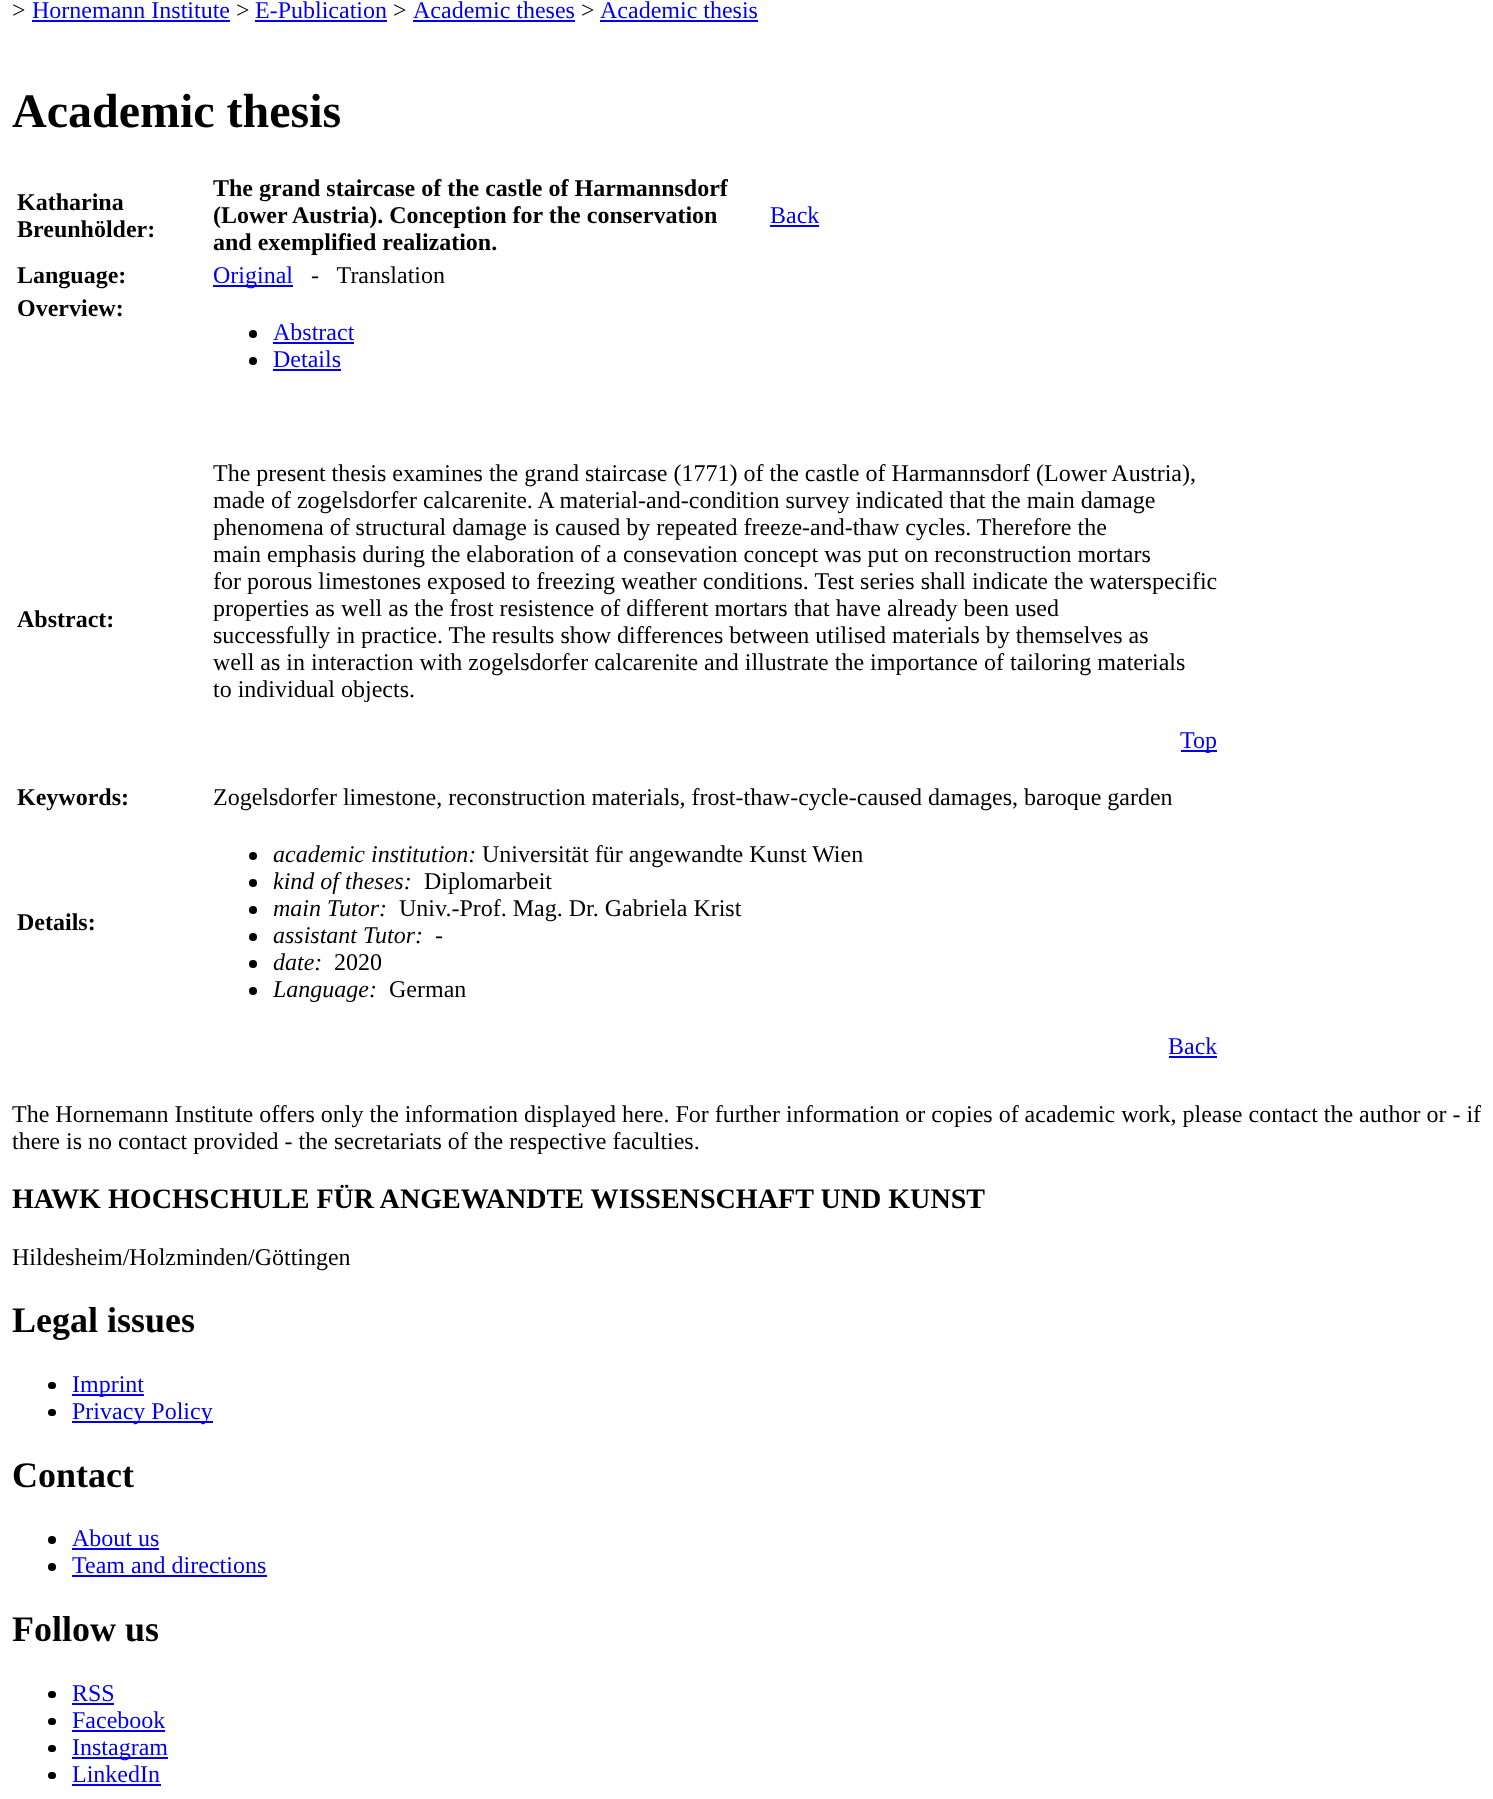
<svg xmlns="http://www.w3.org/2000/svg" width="1493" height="1799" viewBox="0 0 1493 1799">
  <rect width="100%" height="100%" fill="rgb(255,255,255)"/>
  <text x="12" y="18" font-family="Liberation Serif" font-size="24" fill="rgb(0,0,0)">&gt;</text>
  <text x="32" y="18" font-family="Liberation Serif" font-size="24" fill="rgb(0,0,238)">Hornemann Institute</text>
  <rect x="32" y="20" width="198" height="2" fill="rgb(0,0,238)"/>
  <text x="236" y="18" font-family="Liberation Serif" font-size="24" fill="rgb(0,0,0)">&gt;</text>
  <text x="255" y="18" font-family="Liberation Serif" font-size="24" fill="rgb(0,0,238)">E-Publication</text>
  <rect x="255" y="20" width="132" height="2" fill="rgb(0,0,238)"/>
  <text x="393" y="18" font-family="Liberation Serif" font-size="24" fill="rgb(0,0,0)">&gt;</text>
  <text x="413" y="18" font-family="Liberation Serif" font-size="24" fill="rgb(0,0,238)">Academic theses</text>
  <rect x="413" y="20" width="162" height="2" fill="rgb(0,0,238)"/>
  <text x="581" y="18" font-family="Liberation Serif" font-size="24" fill="rgb(0,0,0)">&gt;</text>
  <text x="600" y="18" font-family="Liberation Serif" font-size="24" fill="rgb(0,0,238)">Academic thesis</text>
  <rect x="600" y="20" width="158" height="2" fill="rgb(0,0,238)"/>
  <text x="12" y="127" font-family="Liberation Serif" font-size="48" font-weight="bold" fill="rgb(0,0,0)">Academic thesis</text>
  <g font-family="Liberation Serif" font-size="24" font-weight="bold" fill="rgb(0,0,0)">
    <text>
      <tspan x="17" y="210">Katharina</tspan>
      <tspan x="17" y="237">Breunhölder:</tspan>
    </text>
    <text>
      <tspan x="213" y="196">The grand staircase of the castle of Harmannsdorf</tspan>
      <tspan x="213" y="223">(Lower Austria). Conception for the conservation</tspan>
      <tspan x="213" y="250">and exemplified realization.</tspan>
    </text>
  </g>
  <text x="770" y="223" font-family="Liberation Serif" font-size="24" fill="rgb(0,0,238)">Back</text>
  <rect x="770" y="225" width="49" height="2" fill="rgb(0,0,238)"/>
  <text x="17" y="283" font-family="Liberation Serif" font-size="24" font-weight="bold" fill="rgb(0,0,0)">Language:</text>
  <rect x="213" y="285" width="80" height="2" fill="rgb(0,0,238)"/>
  <text x="213" y="283" font-family="Liberation Serif" font-size="24" fill="rgb(0,0,238)">Original</text>
  <text x="311" y="283" font-family="Liberation Serif" font-size="24" fill="rgb(0,0,0)" xml:space="preserve">-   Translation</text>
  <text x="17" y="316" font-family="Liberation Serif" font-size="24" font-weight="bold" fill="rgb(0,0,0)">Overview:</text>
  <circle cx="253" cy="334" r="4" fill="rgb(0,0,0)"/>
  <text x="273" y="340" font-family="Liberation Serif" font-size="24" fill="rgb(0,0,238)">Abstract</text>
  <rect x="273" y="342" width="81" height="2" fill="rgb(0,0,238)"/>
  <circle cx="253" cy="361" r="4" fill="rgb(0,0,0)"/>
  <text x="273" y="367" font-family="Liberation Serif" font-size="24" fill="rgb(0,0,238)">Details</text>
  <rect x="273" y="369" width="68" height="2" fill="rgb(0,0,238)"/>
  <text x="17" y="627" font-family="Liberation Serif" font-size="24" font-weight="bold" fill="rgb(0,0,0)">Abstract:</text>
  <g font-family="Liberation Serif" font-size="24" fill="rgb(0,0,0)">
    <text>
      <tspan x="213" y="481">The present thesis examines the grand staircase (1771) of the castle of Harmannsdorf (Lower Austria),</tspan>
      <tspan x="213" y="508">made of zogelsdorfer calcarenite. A material-and-condition survey indicated that the main damage</tspan>
      <tspan x="213" y="535">phenomena of structural damage is caused by repeated freeze-and-thaw cycles. Therefore the</tspan>
      <tspan x="213" y="562">main emphasis during the elaboration of a consevation concept was put on reconstruction mortars</tspan>
      <tspan x="213" y="589">for porous limestones exposed to freezing weather conditions. Test series shall indicate the waterspecific</tspan>
      <tspan x="213" y="616">properties as well as the frost resistence of different mortars that have already been used</tspan>
      <tspan x="213" y="643">successfully in practice. The results show differences between utilised materials by themselves as</tspan>
      <tspan x="213" y="670">well as in interaction with zogelsdorfer calcarenite and illustrate the importance of tailoring materials</tspan>
      <tspan x="213" y="697">to individual objects.</tspan>
    </text>
  </g>
  <rect x="1181" y="750" width="36" height="2" fill="rgb(0,0,238)"/>
  <text x="1180" y="748" font-family="Liberation Serif" font-size="24" fill="rgb(0,0,238)">Top</text>
  <text x="17" y="805" font-family="Liberation Serif" font-size="24" font-weight="bold" fill="rgb(0,0,0)">Keywords:</text>
  <text x="213" y="805" font-family="Liberation Serif" font-size="24" fill="rgb(0,0,0)">Zogelsdorfer limestone, reconstruction materials, frost-thaw-cycle-caused damages, baroque garden</text>
  <text x="17" y="930" font-family="Liberation Serif" font-size="24" font-weight="bold" fill="rgb(0,0,0)">Details:</text>
  <circle cx="253" cy="856" r="4" fill="rgb(0,0,0)"/>
  <text x="273" y="862" font-family="Liberation Serif" font-size="24" font-style="italic" fill="rgb(0,0,0)">academic institution:</text>
  <text x="482" y="862" font-family="Liberation Serif" font-size="24" fill="rgb(0,0,0)">Universität für angewandte Kunst Wien</text>
  <circle cx="253" cy="883" r="4" fill="rgb(0,0,0)"/>
  <text x="273" y="889" font-family="Liberation Serif" font-size="24" font-style="italic" fill="rgb(0,0,0)">kind of theses:</text>
  <text x="424" y="889" font-family="Liberation Serif" font-size="24" fill="rgb(0,0,0)">Diplomarbeit</text>
  <circle cx="253" cy="910" r="4" fill="rgb(0,0,0)"/>
  <text x="273" y="916" font-family="Liberation Serif" font-size="24" font-style="italic" fill="rgb(0,0,0)">main Tutor:</text>
  <text x="399" y="916" font-family="Liberation Serif" font-size="24" fill="rgb(0,0,0)">Univ.-Prof. Mag. Dr. Gabriela Krist</text>
  <circle cx="253" cy="937" r="4" fill="rgb(0,0,0)"/>
  <text x="273" y="943" font-family="Liberation Serif" font-size="24" font-style="italic" fill="rgb(0,0,0)">assistant Tutor:</text>
  <text x="435" y="943" font-family="Liberation Serif" font-size="24" fill="rgb(0,0,0)">-</text>
  <circle cx="253" cy="964" r="4" fill="rgb(0,0,0)"/>
  <text x="273" y="970" font-family="Liberation Serif" font-size="24" font-style="italic" fill="rgb(0,0,0)">date:</text>
  <text x="334" y="970" font-family="Liberation Serif" font-size="24" fill="rgb(0,0,0)">2020</text>
  <circle cx="253" cy="991" r="4" fill="rgb(0,0,0)"/>
  <text x="273" y="997" font-family="Liberation Serif" font-size="24" font-style="italic" fill="rgb(0,0,0)">Language:</text>
  <text x="389" y="997" font-family="Liberation Serif" font-size="24" fill="rgb(0,0,0)">German</text>
  <text x="1168" y="1054" font-family="Liberation Serif" font-size="24" fill="rgb(0,0,238)">Back</text>
  <rect x="1169" y="1056" width="48" height="2" fill="rgb(0,0,238)"/>
  <g font-family="Liberation Serif" font-size="24" fill="rgb(0,0,0)">
    <text>
      <tspan x="12" y="1122">The Hornemann Institute offers only the information displayed here. For further information or copies of academic work, please contact the author or - if</tspan>
      <tspan x="12" y="1149">there is no contact provided - the secretariats of the respective faculties.</tspan>
    </text>
  </g>
  <text x="12" y="1208" font-family="Liberation Serif" font-size="28.1" font-weight="bold" fill="rgb(0,0,0)">HAWK HOCHSCHULE FÜR ANGEWANDTE WISSENSCHAFT UND KUNST</text>
  <text x="12" y="1265" font-family="Liberation Serif" font-size="24" fill="rgb(0,0,0)">Hildesheim/Holzminden/Göttingen</text>
  <text x="12" y="1332" font-family="Liberation Serif" font-size="36" font-weight="bold" fill="rgb(0,0,0)">Legal issues</text>
  <rect x="48" y="1382" width="8" height="7" rx="3.5" fill="rgb(0,0,0)"/>
  <rect x="72" y="1394" width="72" height="2" fill="rgb(0,0,238)"/>
  <text x="72" y="1392" font-family="Liberation Serif" font-size="24" fill="rgb(0,0,238)">Imprint</text>
  <rect x="48" y="1409" width="8" height="7" rx="3.5" fill="rgb(0,0,0)"/>
  <rect x="72" y="1421" width="141" height="2" fill="rgb(0,0,238)"/>
  <text x="72" y="1419" font-family="Liberation Serif" font-size="24" fill="rgb(0,0,238)">Privacy Policy</text>
  <text x="12" y="1487" font-family="Liberation Serif" font-size="36" font-weight="bold" fill="rgb(0,0,0)">Contact</text>
  <circle cx="52" cy="1540" r="4" fill="rgb(0,0,0)"/>
  <text x="72" y="1546" font-family="Liberation Serif" font-size="24" fill="rgb(0,0,238)">About us</text>
  <rect x="72" y="1548" width="87" height="2" fill="rgb(0,0,238)"/>
  <circle cx="52" cy="1567" r="4" fill="rgb(0,0,0)"/>
  <text x="72" y="1573" font-family="Liberation Serif" font-size="24" fill="rgb(0,0,238)">Team and directions</text>
  <rect x="72" y="1575" width="195" height="2" fill="rgb(0,0,238)"/>
  <text x="12" y="1641" font-family="Liberation Serif" font-size="36" font-weight="bold" fill="rgb(0,0,0)">Follow us</text>
  <rect x="48" y="1691" width="8" height="7" rx="3.5" fill="rgb(0,0,0)"/>
  <text x="72" y="1701" font-family="Liberation Serif" font-size="24" fill="rgb(0,0,238)">RSS</text>
  <rect x="72" y="1703" width="42" height="2" fill="rgb(0,0,238)"/>
  <rect x="48" y="1718" width="8" height="7" rx="3.5" fill="rgb(0,0,0)"/>
  <text x="72" y="1728" font-family="Liberation Serif" font-size="24" fill="rgb(0,0,238)">Facebook</text>
  <rect x="72" y="1730" width="93" height="2" fill="rgb(0,0,238)"/>
  <rect x="48" y="1745" width="8" height="7" rx="3.5" fill="rgb(0,0,0)"/>
  <rect x="72" y="1757" width="96" height="2" fill="rgb(0,0,238)"/>
  <text x="72" y="1755" font-family="Liberation Serif" font-size="24" fill="rgb(0,0,238)">Instagram</text>
  <rect x="48" y="1772" width="8" height="7" rx="3.5" fill="rgb(0,0,0)"/>
  <text x="72" y="1782" font-family="Liberation Serif" font-size="24" fill="rgb(0,0,238)">LinkedIn</text>
  <rect x="72" y="1784" width="89" height="2" fill="rgb(0,0,238)"/>
</svg>
